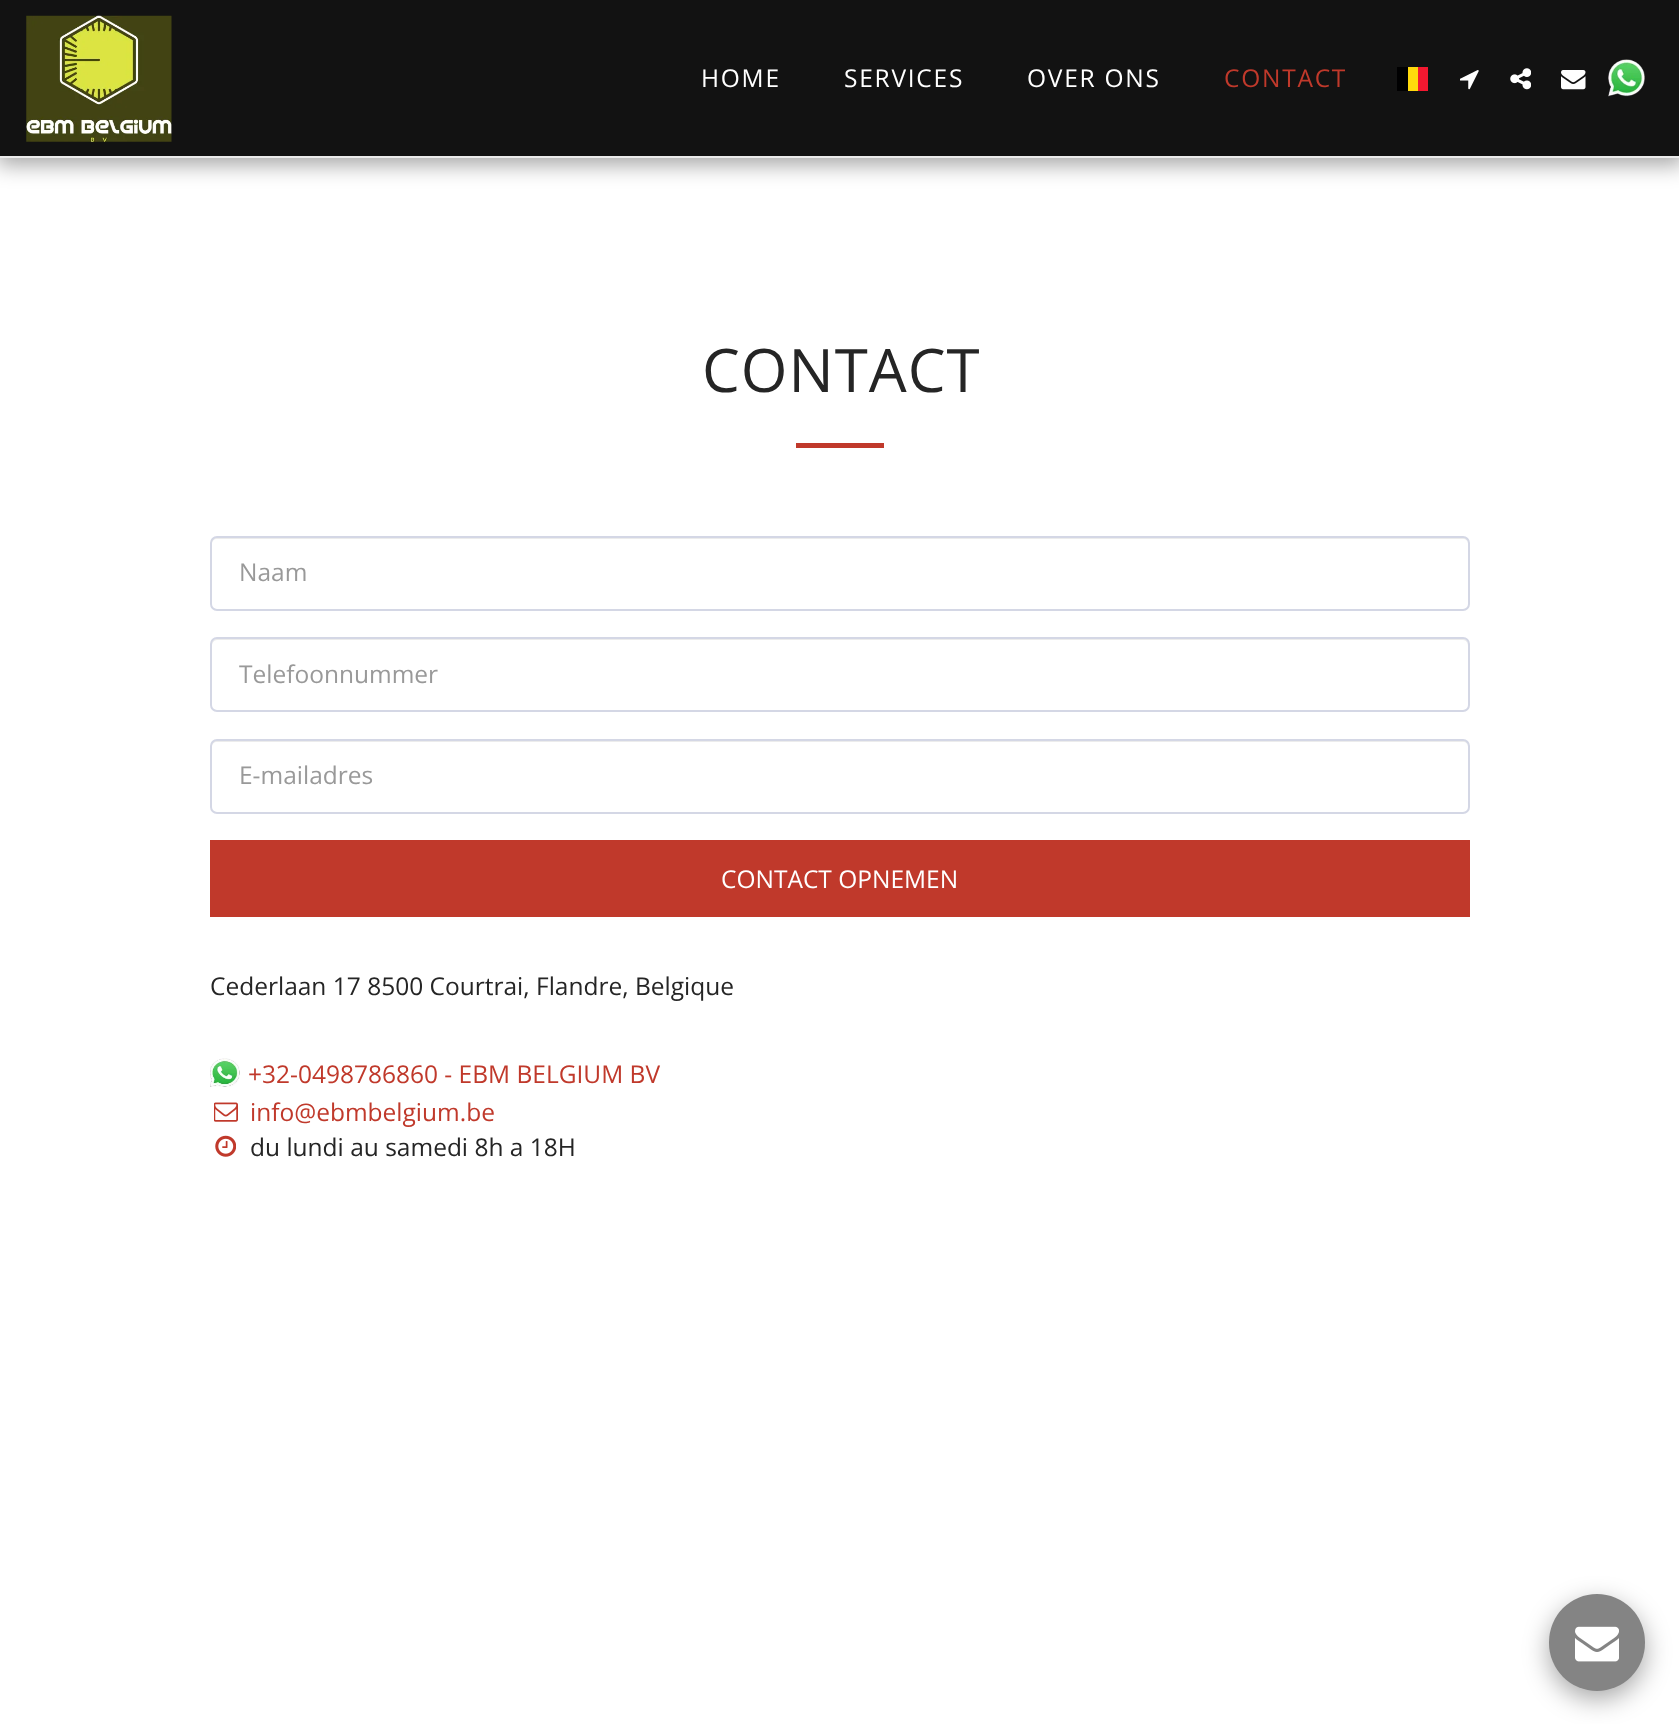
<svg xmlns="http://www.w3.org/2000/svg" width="1679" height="1724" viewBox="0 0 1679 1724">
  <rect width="100%" height="100%" fill="rgb(255,255,255)"/>
  <rect x="-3" y="0" width="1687" height="165" fill="rgba(0,0,0,0.35)" filter="blur(10.5px)"/>
  <rect x="0" y="0" width="1679" height="156" fill="rgb(18,18,18)"/>
  <rect x="0" y="156" width="1679" height="2" fill="rgb(235,235,235)"/>
  <image x="26" y="15" width="146" height="127" href="pic1.png"/>
  <g font-family="Open Sans" font-size="24.5" letter-spacing="1.75" fill="rgb(255,255,255)">
    <text x="701" y="87">HOME</text>
    <text x="844" y="87">SERVICES</text>
    <text x="1027" y="87">OVER ONS</text>
  </g>
  <text x="1224" y="87" font-family="Open Sans" font-size="24.5" letter-spacing="1.75" fill="rgb(192,57,43)">CONTACT</text>
  <rect x="1397" y="67" width="11" height="24" fill="rgb(0,0,1)"/>
  <rect x="1408" y="67" width="10" height="24" fill="rgb(255,217,12)"/>
  <rect x="1418" y="67" width="10" height="24" fill="rgb(243,24,48)"/>
  <image x="1460" y="70" width="19" height="20" href="pic2.png"/>
  <image x="1510" y="68" width="21" height="22" href="pic3.png"/>
  <image x="1561" y="70" width="25" height="20" href="pic4.png"/>
  <image x="1608" y="59" width="37" height="38" href="pic5.png"/>
  <text x="702" y="392" font-family="Open Sans" font-size="60" letter-spacing="1" fill="rgb(37,37,37)">CONTACT</text>
  <rect x="796" y="443" width="88" height="5" fill="rgb(192,57,43)"/>
  <path d="M217 539H1463C1466 539 1468 541 1468 544V542C1468 539 1466 537 1463 537H217C214 537 212 539 212 542V544C212 541 214 539 217 539Z" fill="rgb(236,236,236)"/>
  <rect x="211" y="537" width="1258" height="73" rx="6" fill="none" stroke="rgb(212,215,229)" stroke-width="2"/>
  <text x="239" y="581" font-family="Open Sans" font-size="24.5" fill="rgb(153,153,153)">Naam</text>
  <path d="M217 640H1463C1466 640 1468 643 1468 646V644C1468 641 1466 639 1463 639H217C214 639 212 641 212 644V646C212 643 214 640 217 640Z" fill="rgb(236,236,236)"/>
  <rect x="211" y="638" width="1258" height="73" rx="6" fill="none" stroke="rgb(212,215,229)" stroke-width="2"/>
  <text x="239" y="683" font-family="Open Sans" font-size="24.5" fill="rgb(153,153,153)">Telefoonnummer</text>
  <path d="M217 742H1463C1466 742 1468 744 1468 747V745C1468 742 1466 740 1463 740H217C214 740 212 742 212 745V747C212 744 214 742 217 742Z" fill="rgb(236,236,236)"/>
  <rect x="211" y="740" width="1258" height="73" rx="6" fill="none" stroke="rgb(212,215,229)" stroke-width="2"/>
  <text x="239" y="784" font-family="Open Sans" font-size="24.5" fill="rgb(153,153,153)">E-mailadres</text>
  <rect x="210" y="840" width="1260" height="77" fill="rgb(192,57,43)"/>
  <text x="721" y="888" font-family="Open Sans" font-size="24.5" fill="rgb(255,255,255)">CONTACT OPNEMEN</text>
  <text x="210" y="995" font-family="Open Sans" font-size="24.5" fill="rgb(37,37,37)">Cederlaan 17 8500 Courtrai, Flandre, Belgique</text>
  <image x="210" y="1058" width="30" height="29" href="pic6.png"/>
  <text x="248" y="1083" font-family="Open Sans" font-size="24.5" fill="rgb(192,57,43)">+32-0498786860 - EBM BELGIUM BV</text>
  <image x="214" y="1102" width="24" height="20" href="pic7.png"/>
  <text x="250" y="1121" font-family="Open Sans" font-size="24.5" fill="rgb(192,57,43)">info@ebmbelgium.be</text>
  <image x="215" y="1135" width="21" height="22" href="pic8.png"/>
  <text x="250" y="1156" font-family="Open Sans" font-size="24.5" fill="rgb(37,37,37)">du lundi au samedi 8h a 18H</text>
  <rect x="1549" y="1603" width="96" height="96" rx="48" fill="rgba(0,0,0,0.35)" filter="blur(13px)"/>
  <rect x="1549" y="1594" width="96" height="97" rx="48" fill="rgb(132,132,132)"/>
  <image x="1575" y="1626" width="44" height="36" href="pic9.png"/>
</svg>
